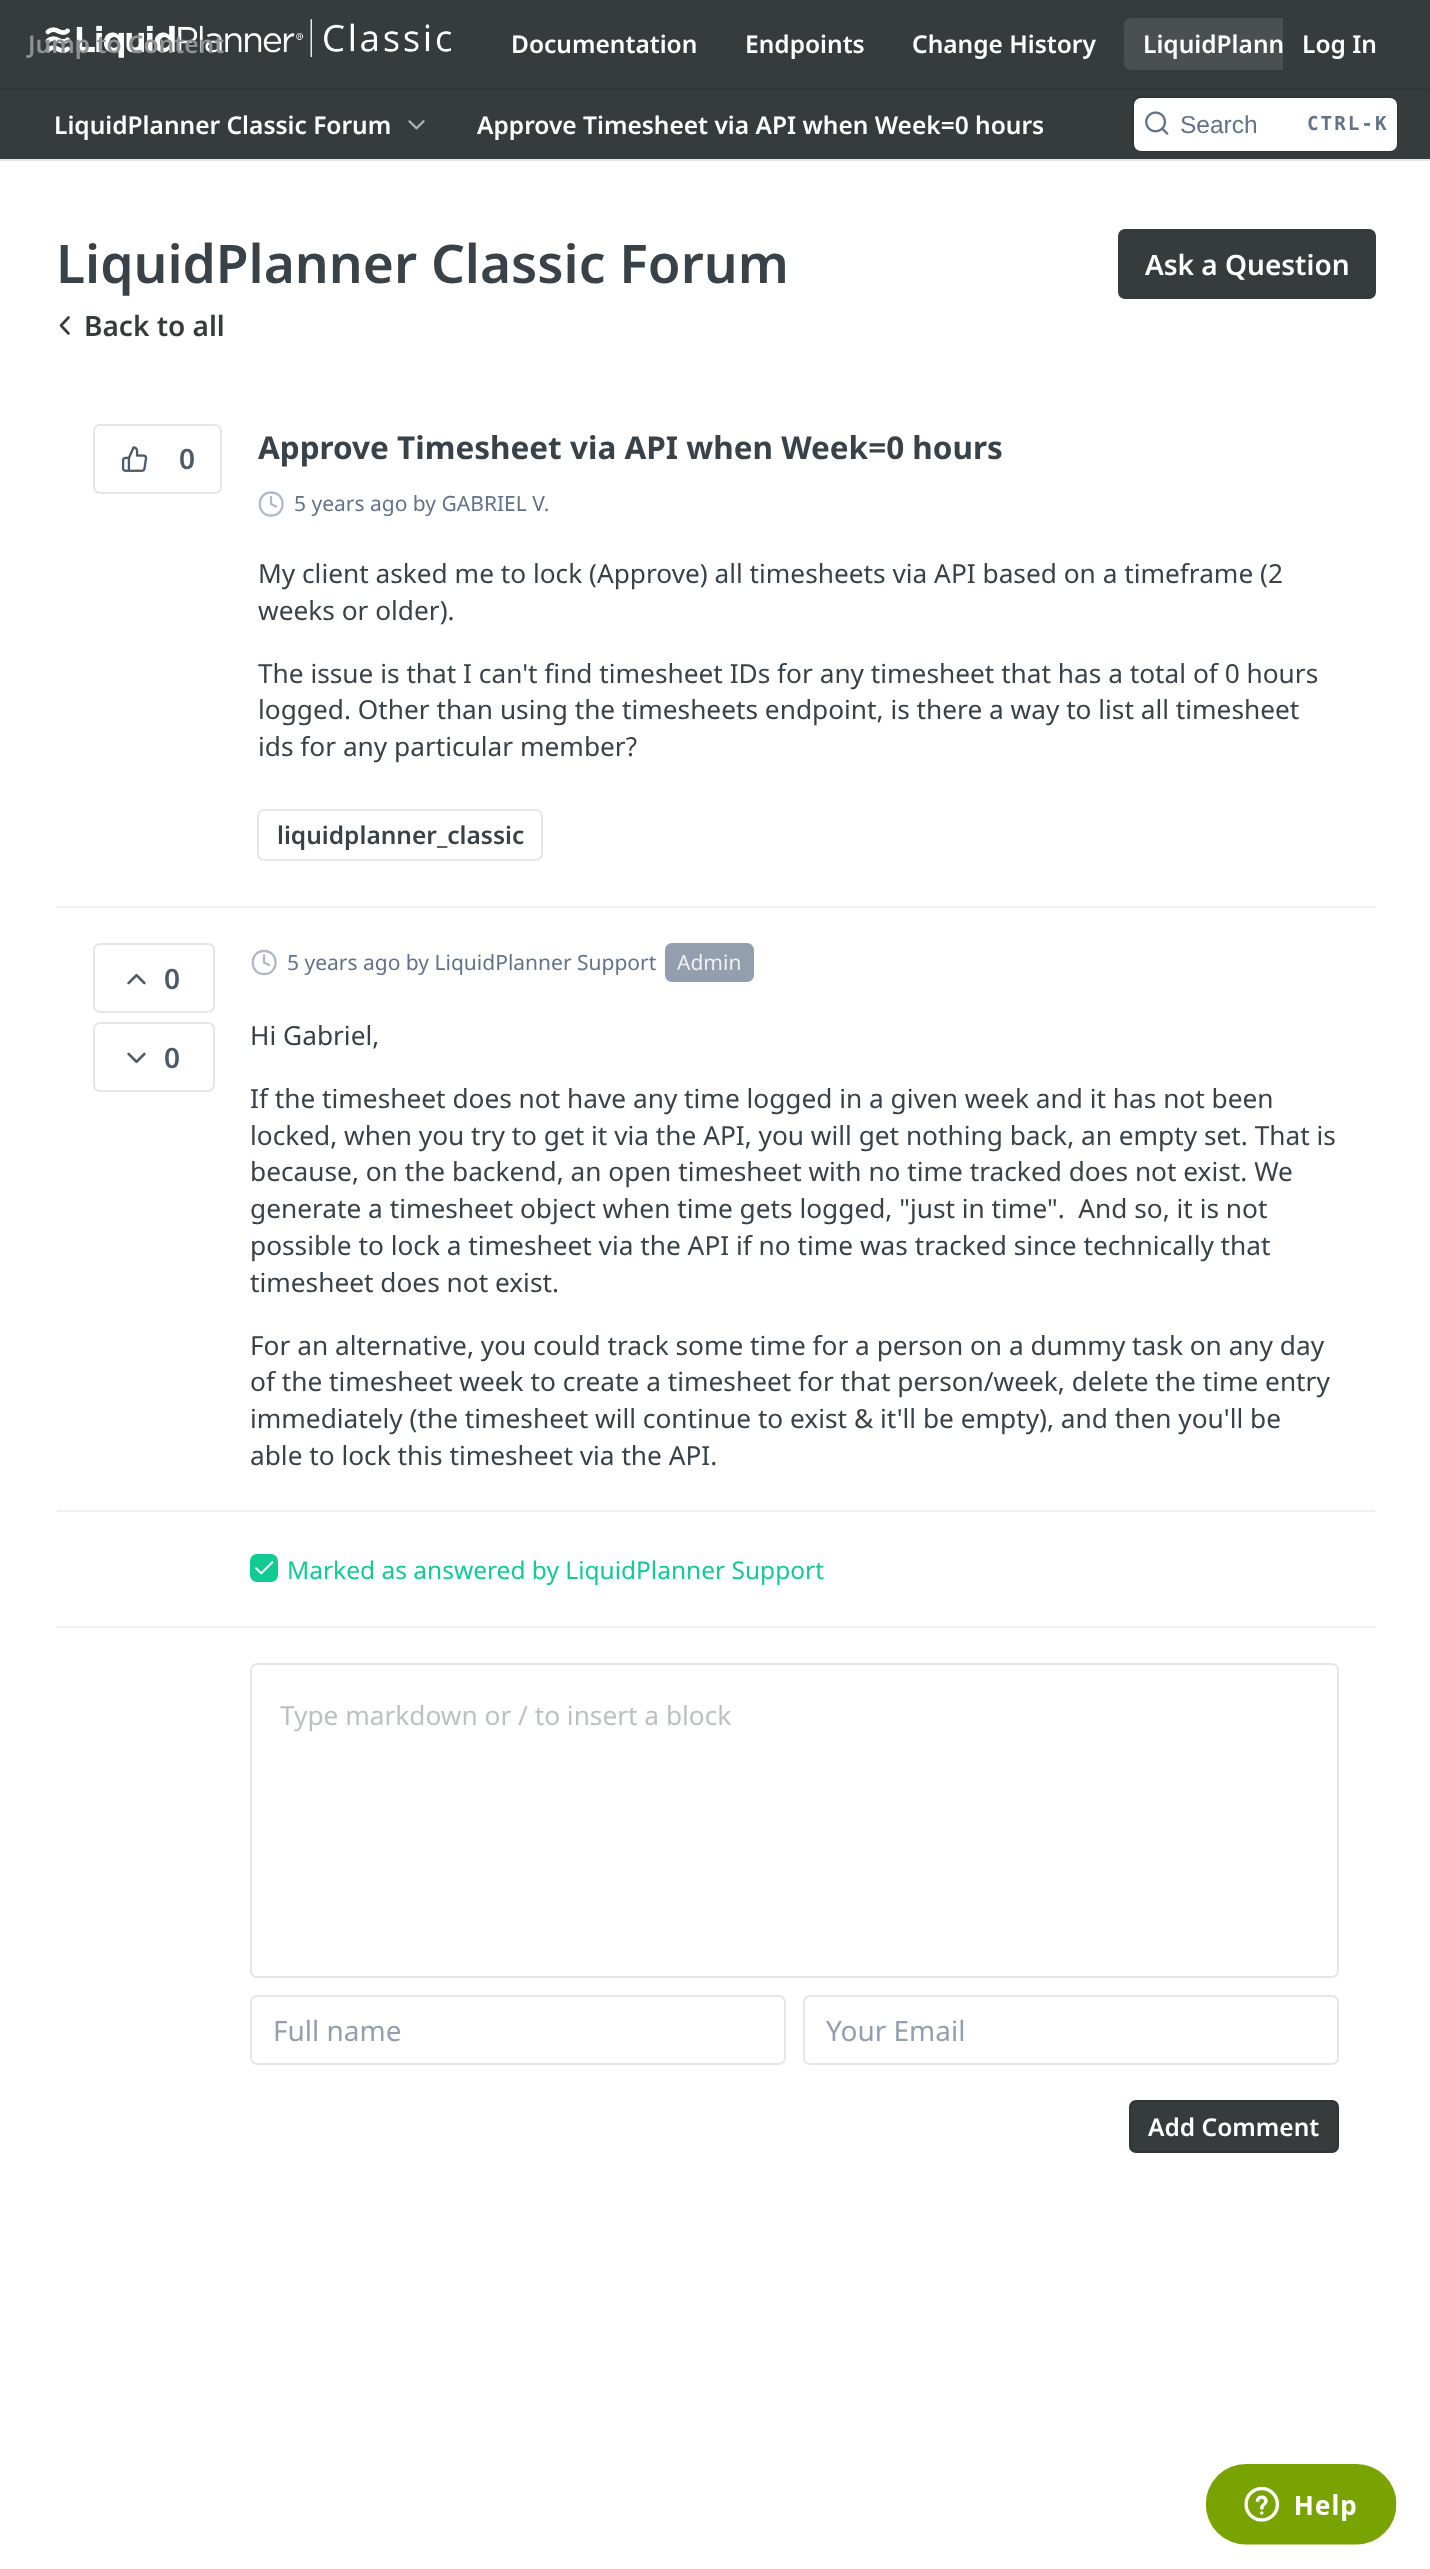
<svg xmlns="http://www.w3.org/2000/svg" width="1430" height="2569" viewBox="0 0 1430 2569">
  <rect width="100%" height="100%" fill="rgb(255,255,255)"/>
  <path d="M0 159V161H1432V2V159Z" fill="rgb(230,230,230)"/>
  <rect x="0" y="0" width="1430" height="159" fill="rgb(54,59,60)"/>
  <rect x="0" y="88" width="1430" height="2" fill="rgb(49,53,54)"/>
  <image x="45" y="19" width="407" height="39" href="pic1.png"/>
  <text x="28" y="53" font-family="Noto Sans" font-size="24.5" font-weight="600" fill="rgb(143,145,146)">Jump to Content</text>
  <g font-family="Noto Sans" font-size="24.5" font-weight="600" fill="rgb(255,255,255)">
    <text x="511" y="53">Documentation</text>
    <text x="745" y="53">Endpoints</text>
    <text x="912" y="53">Change History</text>
  </g>
  <path d="M1131 18H1283V70H1131C1127 70 1124 67 1124 63V25C1124 21 1127 18 1131 18Z" fill="rgb(74,79,80)"/>
  <g font-family="Noto Sans" font-size="24.5" font-weight="600" fill="rgb(255,255,255)">
    <text x="1143" y="53">LiquidPlann</text>
    <text x="1302" y="53">Log In</text>
    <text x="54" y="134">LiquidPlanner Classic Forum</text>
  </g>
  <image x="408" y="120" width="17" height="10" href="pic2.png"/>
  <text x="477" y="134" font-family="Noto Sans" font-size="24.5" font-weight="600" fill="rgb(255,255,255)">Approve Timesheet via API when Week=0 hours</text>
  <rect x="1133" y="97" width="264" height="54" rx="8" fill="none" stroke="rgb(49,53,54)" stroke-width="2"/>
  <rect x="1134" y="98" width="263" height="53" rx="7" fill="rgb(255,255,255)"/>
  <image x="1145" y="111" width="24" height="24" href="pic3.png"/>
  <text x="1180" y="133" font-family="Liberation Sans" font-size="24.5" fill="rgb(99,114,136)">Search</text>
  <text x="1307" y="130" font-family="DejaVu Sans Mono" font-size="19.25" font-weight="bold" letter-spacing="2" fill="rgb(99,114,136)">CTRL-K</text>
  <text x="56" y="283" font-family="Noto Sans" font-size="53.25" font-weight="600" fill="rgb(56,66,72)">LiquidPlanner Classic Forum</text>
  <rect x="1118" y="229" width="258" height="70" rx="7" fill="rgb(54,59,60)"/>
  <text x="1145" y="275" font-family="Noto Sans" font-size="28" font-weight="600" fill="rgb(255,255,255)">Ask a Question</text>
  <path d="M68.5 333.5L61 325.5L68.5 317.5" fill="none" stroke="rgb(54,59,60)" stroke-width="2.6" stroke-linecap="round" stroke-linejoin="round"/>
  <text x="84" y="336" font-family="Noto Sans" font-size="28" font-weight="600" fill="rgb(54,59,60)">Back to all</text>
  <rect x="94" y="425" width="127" height="68" rx="6" fill="none" stroke="rgb(230,230,230)" stroke-width="2"/>
  <image x="121" y="446" width="27" height="26" href="pic4.png"/>
  <text x="179" y="469" font-family="Noto Sans" font-size="28" font-weight="600" fill="rgb(79,90,102)">0</text>
  <text x="258" y="459" font-family="Noto Sans" font-size="31.5" font-weight="bold" fill="rgb(56,66,72)">Approve Timesheet via API when Week=0 hours</text>
  <path d="M271 515.5C286.5 515.5 286.5 492.5 271 492.5C256 492.5 256 515.5 271 515.5ZM271 497V504L276 506.5" fill="none" stroke="rgb(177,185,196)" stroke-width="2.3" stroke-linecap="round" stroke-linejoin="round"/>
  <text x="294" y="511" font-family="Noto Sans" font-size="21" fill="rgb(99,114,136)">5 years ago by GABRIEL V.</text>
  <g font-family="Noto Sans" font-size="26.25" fill="rgb(56,66,72)">
    <text>
      <tspan x="258" y="583">My client asked me to lock (Approve) all timesheets via API based on a timeframe (2</tspan>
      <tspan x="258" y="620">weeks or older).</tspan>
    </text>
    <text>
      <tspan x="258" y="683">The issue is that I can't find timesheet IDs for any timesheet that has a total of 0 hours</tspan>
      <tspan x="258" y="719">logged. Other than using the timesheets endpoint, is there a way to list all timesheet</tspan>
      <tspan x="258" y="756">ids for any particular member?</tspan>
    </text>
  </g>
  <rect x="258" y="810" width="284" height="50" rx="6" fill="none" stroke="rgb(230,230,230)" stroke-width="2"/>
  <text x="277" y="844" font-family="Noto Sans" font-size="24.5" font-weight="600" fill="rgb(56,66,72)">liquidplanner_classic</text>
  <path d="M56 906H1376L1374 908H58Z" fill="rgb(242,242,242)"/>
  <rect x="94" y="944" width="120" height="68" rx="6" fill="none" stroke="rgb(230,230,230)" stroke-width="2"/>
  <image x="127" y="973" width="19" height="12" href="pic5.png"/>
  <text x="164" y="989" font-family="Noto Sans" font-size="28" font-weight="600" fill="rgb(79,90,102)">0</text>
  <rect x="94" y="1023" width="120" height="68" rx="6" fill="none" stroke="rgb(230,230,230)" stroke-width="2"/>
  <image x="127" y="1052" width="19" height="12" href="pic6.png"/>
  <text x="164" y="1068" font-family="Noto Sans" font-size="28" font-weight="600" fill="rgb(79,90,102)">0</text>
  <path d="M264 974C279.5 974 279.5 951 264 951C249 951 249 974 264 974ZM264 955.5V962.5L269 965" fill="none" stroke="rgb(177,185,196)" stroke-width="2.3" stroke-linecap="round" stroke-linejoin="round"/>
  <text x="287" y="970" font-family="Noto Sans" font-size="21" fill="rgb(99,114,136)">5 years ago by LiquidPlanner Support</text>
  <rect x="665" y="943" width="89" height="39" rx="7" fill="rgb(147,158,174)"/>
  <text x="677" y="970" font-family="Noto Sans" font-size="21" fill="rgb(240,240,240)">Admin</text>
  <g font-family="Noto Sans" font-size="26.25" fill="rgb(56,66,72)">
    <text x="250" y="1045">Hi Gabriel,</text>
    <text xml:space="preserve"><tspan x="250" y="1108">If the timesheet does not have any time logged in a given week and it has not been</tspan><tspan x="250" y="1145">locked, when you try to get it via the API, you will get nothing back, an empty set. That is</tspan><tspan x="250" y="1181">because, on the backend, an open timesheet with no time tracked does not exist. We</tspan><tspan x="250" y="1218">generate a timesheet object when time gets logged, "just in time".  And so, it is not</tspan><tspan x="250" y="1255">possible to lock a timesheet via the API if no time was tracked since technically that</tspan><tspan x="250" y="1292">timesheet does not exist.</tspan></text>
    <text>
      <tspan x="250" y="1355">For an alternative, you could track some time for a person on a dummy task on any day</tspan>
      <tspan x="250" y="1391">of the timesheet week to create a timesheet for that person/week, delete the time entry</tspan>
      <tspan x="250" y="1428">immediately (the timesheet will continue to exist &amp; it'll be empty), and then you'll be</tspan>
      <tspan x="250" y="1465">able to lock this timesheet via the API.</tspan>
    </text>
  </g>
  <path d="M56 1510H1376L1374 1512H58Z" fill="rgb(242,242,242)"/>
  <rect x="250" y="1554" width="28" height="28" rx="7" fill="rgb(18,202,147)"/>
  <image x="255" y="1561" width="19" height="14" href="pic7.png"/>
  <text x="287" y="1579" font-family="Noto Sans" font-size="24.5" fill="rgb(18,202,147)">Marked as answered by LiquidPlanner Support</text>
  <path d="M56 1626H1376L1374 1628H58Z" fill="rgb(242,242,242)"/>
  <rect x="251" y="1664" width="1087" height="313" rx="6" fill="none" stroke="rgb(230,230,230)" stroke-width="2"/>
  <text x="280" y="1725" font-family="Noto Sans" font-size="26.25" fill="rgb(189,192,194)">Type markdown or / to insert a block</text>
  <rect x="251" y="1996" width="534" height="68" rx="6" fill="none" stroke="rgb(230,230,230)" stroke-width="2"/>
  <text x="273" y="2041" font-family="Noto Sans" font-size="28" fill="rgb(147,158,174)">Full name</text>
  <rect x="804" y="1996" width="534" height="68" rx="6" fill="none" stroke="rgb(230,230,230)" stroke-width="2"/>
  <text x="826" y="2041" font-family="Noto Sans" font-size="28" fill="rgb(147,158,174)">Your Email</text>
  <rect x="1129" y="2100" width="210" height="53" rx="7" fill="rgb(54,59,60)"/>
  <rect x="1130" y="2101" width="208" height="51" rx="6" fill="none" stroke="rgba(0,0,0,0.1)" stroke-width="2"/>
  <text x="1148" y="2136" font-family="Noto Sans" font-size="24.5" font-weight="600" fill="rgb(255,255,255)">Add Comment</text>
  <image x="1206" y="2464" width="191" height="81" href="pic8.png"/>
</svg>
